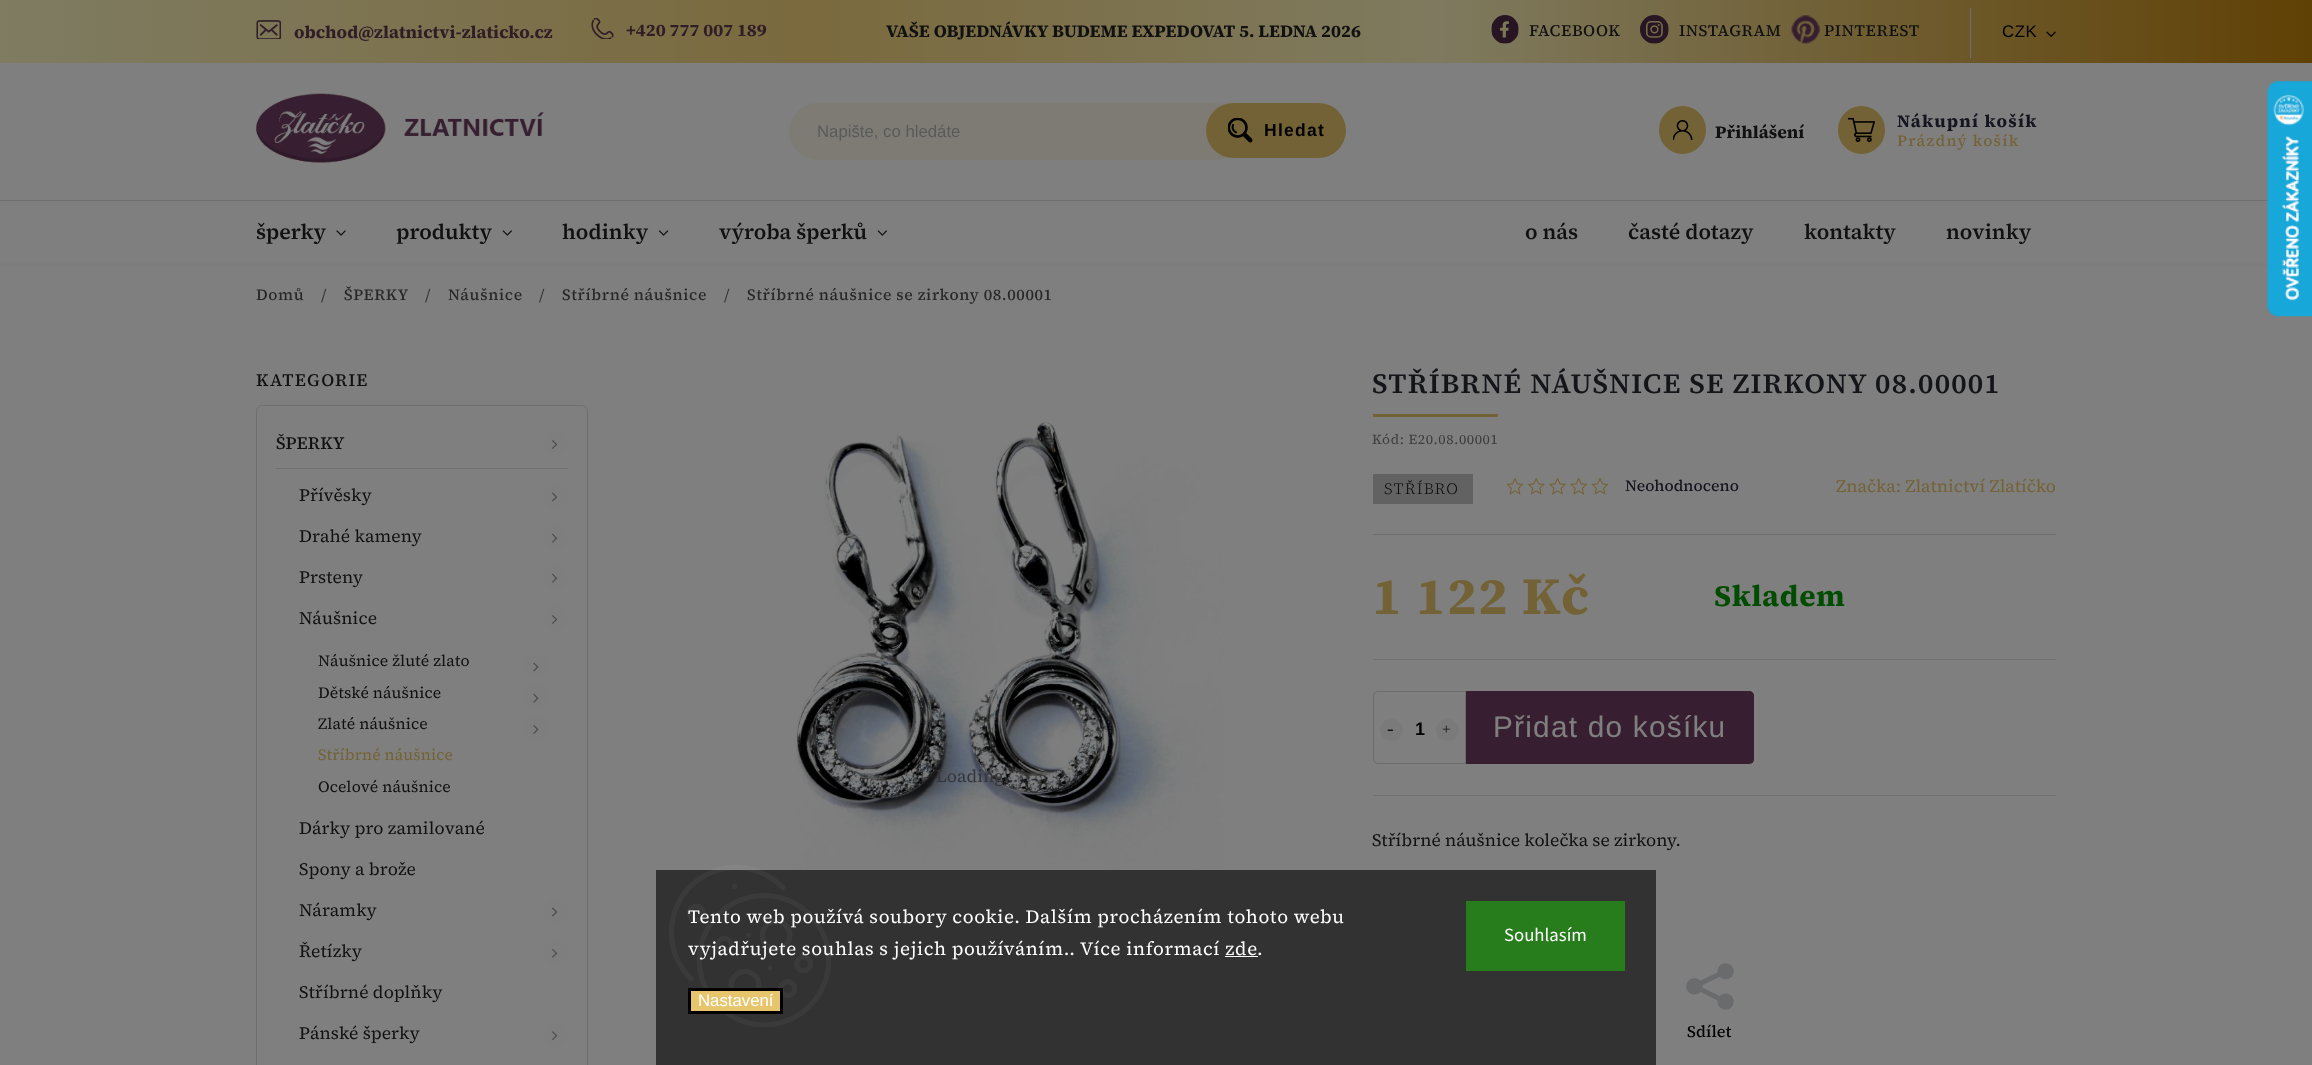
<svg xmlns="http://www.w3.org/2000/svg" width="2312" height="1065" viewBox="0 0 2312 1065">
  <defs>
    <linearGradient id="g1" gradientUnits="userSpaceOnUse" x1="0" y1="31" x2="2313" y2="31"><stop offset="0" stop-color="rgb(254,248,197)"/><stop offset="0.35" stop-color="rgb(245,212,123)"/><stop offset="0.62" stop-color="rgb(254,245,191)"/><stop offset="1" stop-color="rgb(193,130,10)"/></linearGradient>
  </defs>
  <rect width="100%" height="100%" fill="rgb(255,255,255)"/>
  <rect x="0" y="0" width="2312" height="63" fill="url(#g1)"/>
  <image x="256" y="20" width="25" height="19" href="pic1.png"/>
  <text x="294" y="38" font-family="'Source Serif 4'" font-size="17.5" font-weight="bold" fill="rgb(97,61,79)">obchod@zlatnictvi-zlaticko.cz</text>
  <image x="591" y="18" width="23" height="21" href="pic2.png"/>
  <text x="626" y="36" font-family="'Source Serif 4'" font-size="17.5" font-weight="bold" fill="rgb(97,61,79)">+420 777 007 189</text>
  <text x="886" y="37" font-family="'Source Serif 4'" font-size="17.5" font-weight="bold" fill="rgb(34,34,34)">VAŠE OBJEDNÁVKY BUDEME EXPEDOVAT 5. LEDNA 2026</text>
  <image x="1491" y="15" width="28" height="29" href="pic3.png"/>
  <text x="1529" y="36" font-family="'Source Serif 4'" font-size="16.25" font-weight="500" letter-spacing="0.62" fill="rgb(34,34,34)">FACEBOOK</text>
  <image x="1640" y="15" width="29" height="29" href="pic4.png"/>
  <text x="1679" y="36" font-family="'Source Serif 4'" font-size="16.25" font-weight="500" letter-spacing="0.62" fill="rgb(34,34,34)">INSTAGRAM</text>
  <image x="1791" y="15" width="29" height="29" href="pic5.png"/>
  <text x="1824" y="36" font-family="'Source Serif 4'" font-size="16.25" font-weight="500" letter-spacing="0.62" fill="rgb(34,34,34)">PINTEREST</text>
  <rect x="1970" y="8" width="1" height="50" fill="rgb(223,223,223)"/>
  <text x="2002" y="37" font-family="Liberation Sans" font-size="16.75" letter-spacing="0.62" fill="rgb(0,0,0)">CZK</text>
  <image x="2046" y="31" width="10" height="6" href="pic6.png"/>
  <rect x="0" y="200" width="2268" height="1" fill="rgb(223,223,223)"/>
  <image x="256" y="93" width="288" height="70" href="pic7.png"/>
  <rect x="789.5" y="103.5" width="455" height="56" rx="28" fill="rgb(252,247,233)" stroke="rgb(252,247,233)"/>
  <text x="817" y="137" font-family="Liberation Sans" font-size="16.75" fill="rgb(180,180,180)">Napište, co hledáte</text>
  <rect x="1206" y="103" width="140" height="55" rx="27.5" fill="rgb(231,197,108)"/>
  <image x="1228" y="118" width="25" height="25" href="pic8.png"/>
  <text x="1264" y="136" font-family="Liberation Sans" font-size="17.5" font-weight="bold" letter-spacing="1.25" fill="rgb(0,0,0)">Hledat</text>
  <rect x="1659" y="106" width="47" height="48" rx="23.5" fill="rgb(231,197,108)"/>
  <image x="1673" y="120" width="20" height="20" href="pic9.png"/>
  <text x="1715" y="138" font-family="'Source Serif 4'" font-size="17.5" font-weight="bold" fill="rgb(34,34,34)">Přihlášení</text>
  <rect x="1838" y="106" width="47" height="48" rx="23.5" fill="rgb(231,197,108)"/>
  <image x="1848" y="117" width="27" height="26" href="pic10.png"/>
  <text x="1897" y="127" font-family="'Source Serif 4'" font-size="17.5" font-weight="bold" letter-spacing="1.25" fill="rgb(43,42,64)">Nákupní košík</text>
  <text x="1897" y="146" font-family="'Source Serif 4'" font-size="15.75" font-weight="500" letter-spacing="1.25" fill="rgb(231,197,108)">Prázdný košík</text>
  <text x="256" y="239" font-family="'Source Serif 4'" font-size="21.25" font-weight="600" fill="rgb(34,34,34)">šperky</text>
  <image x="336" y="230" width="10" height="6" href="pic11.png"/>
  <text x="396" y="239" font-family="'Source Serif 4'" font-size="21.25" font-weight="600" fill="rgb(34,34,34)">produkty</text>
  <image x="502" y="230" width="10" height="6" href="pic12.png"/>
  <text x="562" y="239" font-family="'Source Serif 4'" font-size="21.25" font-weight="600" fill="rgb(34,34,34)">hodinky</text>
  <image x="658" y="230" width="11" height="6" href="pic13.png"/>
  <text x="719" y="239" font-family="'Source Serif 4'" font-size="21.25" font-weight="600" fill="rgb(34,34,34)">výroba šperků</text>
  <image x="877" y="230" width="10" height="6" href="pic12.png"/>
  <g font-family="'Source Serif 4'" font-size="21.25" font-weight="600" fill="rgb(34,34,34)">
    <text x="1525" y="239">o nás</text>
    <text x="1628" y="239">časté dotazy</text>
    <text x="1804" y="239">kontakty</text>
    <text x="1946" y="239">novinky</text>
  </g>
  <rect x="0" y="263" width="2268" height="4" fill="rgb(250,250,250)"/>
  <text x="256" y="300" font-family="'Source Serif 4'" font-size="15.75" font-weight="500" letter-spacing="0.62" fill="rgb(80,80,80)">Domů</text>
  <text x="321" y="300" font-family="'Source Serif 4'" font-size="15.75" letter-spacing="0.62" fill="rgb(96,96,96)">/</text>
  <text x="344" y="300" font-family="'Source Serif 4'" font-size="15.75" font-weight="500" letter-spacing="0.62" fill="rgb(80,80,80)">ŠPERKY</text>
  <text x="425" y="300" font-family="'Source Serif 4'" font-size="15.75" letter-spacing="0.62" fill="rgb(96,96,96)">/</text>
  <text x="448" y="300" font-family="'Source Serif 4'" font-size="15.75" font-weight="500" letter-spacing="0.62" fill="rgb(80,80,80)">Náušnice</text>
  <text x="539" y="300" font-family="'Source Serif 4'" font-size="15.75" letter-spacing="0.62" fill="rgb(96,96,96)">/</text>
  <text x="562" y="300" font-family="'Source Serif 4'" font-size="15.75" font-weight="500" letter-spacing="0.62" fill="rgb(80,80,80)">Stříbrné náušnice</text>
  <text x="724" y="300" font-family="'Source Serif 4'" font-size="15.75" letter-spacing="0.62" fill="rgb(96,96,96)">/</text>
  <text x="747" y="300" font-family="'Source Serif 4'" font-size="15.75" font-weight="500" letter-spacing="0.62" fill="rgb(80,80,80)">Stříbrné náušnice se zirkony 08.00001</text>
  <text x="256" y="386" font-family="'Source Serif 4'" font-size="17.5" font-weight="500" letter-spacing="1.25" fill="rgb(34,34,34)">KATEGORIE</text>
  <rect x="256.5" y="405.5" width="331" height="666" rx="5.5" fill="none" stroke="rgb(223,223,223)"/>
  <rect x="276" y="468" width="292" height="1" fill="rgb(223,223,223)"/>
  <text x="276" y="449" font-family="'Source Serif 4'" font-size="17.5" font-weight="500" letter-spacing="0.1" fill="rgb(34,34,34)">ŠPERKY</text>
  <circle cx="555.5" cy="443.5" r="12.5" fill="rgb(252,252,252)"/>
  <image x="552" y="440" width="6" height="9" href="pic14.png"/>
  <text x="299" y="501" font-family="'Source Serif 4'" font-size="17.5" letter-spacing="0.1" fill="rgb(34,34,34)">Přívěsky</text>
  <circle cx="555.5" cy="496.5" r="12.5" fill="rgb(252,252,252)"/>
  <image x="552" y="492" width="6" height="10" href="pic15.png"/>
  <text x="299" y="542" font-family="'Source Serif 4'" font-size="17.5" letter-spacing="0.1" fill="rgb(34,34,34)">Drahé kameny</text>
  <circle cx="555.5" cy="537.5" r="12.5" fill="rgb(252,252,252)"/>
  <image x="552" y="533" width="6" height="10" href="pic16.png"/>
  <text x="299" y="583" font-family="'Source Serif 4'" font-size="17.5" letter-spacing="0.1" fill="rgb(34,34,34)">Prsteny</text>
  <circle cx="555.5" cy="577.5" r="12.5" fill="rgb(252,252,252)"/>
  <image x="552" y="573" width="6" height="10" href="pic16.png"/>
  <text x="299" y="624" font-family="'Source Serif 4'" font-size="17.5" letter-spacing="0.1" fill="rgb(34,34,34)">Náušnice</text>
  <circle cx="555.5" cy="618.5" r="12.5" fill="rgb(252,252,252)"/>
  <image x="552" y="615" width="6" height="9" href="pic14.png"/>
  <text x="318" y="666" font-family="'Source Serif 4'" font-size="15.75" letter-spacing="0.1" fill="rgb(34,34,34)">Náušnice žluté zlato</text>
  <circle cx="536.5" cy="666.5" r="12.5" fill="rgb(252,252,252)"/>
  <image x="533" y="662" width="6" height="10" href="pic17.png"/>
  <text x="318" y="698" font-family="'Source Serif 4'" font-size="15.75" letter-spacing="0.1" fill="rgb(34,34,34)">Dětské náušnice</text>
  <circle cx="536.5" cy="697.5" r="12.5" fill="rgb(252,252,252)"/>
  <image x="533" y="693" width="6" height="10" href="pic18.png"/>
  <text x="318" y="729" font-family="'Source Serif 4'" font-size="15.75" letter-spacing="0.1" fill="rgb(34,34,34)">Zlaté náušnice</text>
  <circle cx="536.5" cy="728.5" r="12.5" fill="rgb(252,252,252)"/>
  <image x="533" y="725" width="6" height="9" href="pic19.png"/>
  <text x="318" y="760" font-family="'Source Serif 4'" font-size="15.75" letter-spacing="0.1" fill="rgb(231,197,108)">Stříbrné náušnice</text>
  <text x="318" y="792" font-family="'Source Serif 4'" font-size="15.75" letter-spacing="0.1" fill="rgb(34,34,34)">Ocelové náušnice</text>
  <g font-family="'Source Serif 4'" font-size="17.5" letter-spacing="0.1" fill="rgb(34,34,34)">
    <text x="299" y="834">Dárky pro zamilované</text>
    <text x="299" y="875">Spony a brože</text>
    <text x="299" y="916">Náramky</text>
  </g>
  <circle cx="555.5" cy="911.5" r="12.5" fill="rgb(252,252,252)"/>
  <image x="552" y="907" width="6" height="10" href="pic15.png"/>
  <text x="299" y="957" font-family="'Source Serif 4'" font-size="17.5" letter-spacing="0.1" fill="rgb(34,34,34)">Řetízky</text>
  <circle cx="555.5" cy="952.5" r="12.5" fill="rgb(252,252,252)"/>
  <image x="552" y="948" width="6" height="10" href="pic16.png"/>
  <g font-family="'Source Serif 4'" font-size="17.5" letter-spacing="0.1" fill="rgb(34,34,34)">
    <text x="299" y="998">Stříbrné doplňky</text>
    <text x="299" y="1039">Pánské šperky</text>
  </g>
  <circle cx="555.5" cy="1035.5" r="12.5" fill="rgb(252,252,252)"/>
  <image x="552" y="1031" width="6" height="10" href="pic20.png"/>
  <image x="795" y="421" width="429" height="449" href="pic21.png"/>
  <text x="936" y="782" font-family="'Source Serif 4'" font-size="17.5" fill="rgb(104,109,118)">Loading...</text>
  <text x="1372" y="393" font-family="'Source Serif 4'" font-size="28" font-weight="600" letter-spacing="1.25" fill="rgb(41,43,50)">STŘÍBRNÉ NÁUŠNICE SE ZIRKONY 08.00001</text>
  <rect x="1373" y="414" width="125" height="3" fill="rgb(231,197,108)"/>
  <text x="1372" y="444" font-family="'Source Serif 4'" font-size="13.75" letter-spacing="0.62" fill="rgb(122,122,122)">Kód: E20.08.00001</text>
  <rect x="1373" y="474" width="100" height="30" fill="rgb(196,196,196)"/>
  <text x="1384" y="494" font-family="'Source Serif 4'" font-size="15.75" font-weight="300" letter-spacing="1.25" fill="rgb(0,0,0)">STŘÍBRO</text>
  <image x="1506" y="477" width="18" height="18" href="pic22.png"/>
  <image x="1527" y="477" width="18" height="18" href="pic23.png"/>
  <image x="1549" y="477" width="17" height="18" href="pic24.png"/>
  <image x="1570" y="477" width="18" height="18" href="pic25.png"/>
  <image x="1591" y="477" width="18" height="18" href="pic22.png"/>
  <text x="1625" y="491" font-family="'Source Serif 4'" font-size="15.75" font-weight="500" fill="rgb(43,42,64)">Neohodnoceno</text>
  <text x="1836" y="492" font-family="'Source Serif 4'" font-size="17.5" fill="rgb(231,197,108)">Značka: Zlatnictví Zlatíčko</text>
  <rect x="1373" y="534" width="683" height="1" fill="rgb(223,223,223)"/>
  <text x="1372" y="614" font-family="'Source Serif 4'" font-size="52.5" font-weight="bold" letter-spacing="1.25" fill="rgb(231,197,108)">1 122 Kč</text>
  <text x="1714" y="606" font-family="'Source Serif 4'" font-size="29.75" font-weight="bold" letter-spacing="0.62" fill="rgb(0,153,1)">Skladem</text>
  <rect x="1373" y="659" width="683" height="1" fill="rgb(223,223,223)"/>
  <rect x="1373" y="795" width="683" height="1" fill="rgb(223,223,223)"/>
  <path d="M1378 691.5H1465.5V763.5H1378C1375.5 763.5 1373.5 761.5 1373.5 759V696C1373.5 693.5 1375.5 691.5 1378 691.5Z" fill="none" stroke="rgb(218,218,218)"/>
  <rect x="1380" y="719" width="23" height="22" rx="11" fill="rgb(245,245,245)"/>
  <text x="1387" y="735" font-family="Liberation Serif" font-size="20" fill="rgb(34,34,34)">-</text>
  <text x="1415" y="735" font-family="Liberation Sans" font-size="18" font-weight="bold" fill="rgb(0,0,0)">1</text>
  <rect x="1436" y="719" width="23" height="22" rx="11" fill="rgb(245,245,245)"/>
  <text x="1442" y="734" font-family="Liberation Serif" font-size="15" letter-spacing="1.25" fill="rgb(34,34,34)">+</text>
  <path d="M1466 691H1749C1752 691 1754 693 1754 696V759C1754 762 1752 764 1749 764H1466Z" fill="rgb(111,61,98)"/>
  <text x="1493" y="737" font-family="Liberation Sans" font-size="29.75" letter-spacing="1.25" fill="rgb(255,255,255)">Přidat do košíku</text>
  <text x="1372" y="846" font-family="'Source Serif 4'" font-size="17.5" fill="rgb(34,34,34)">Stříbrné náušnice kolečka se zirkony.</text>
  <image x="1686" y="963" width="48" height="47" href="pic26.png"/>
  <text x="1687" y="1037" font-family="'Source Serif 4'" font-size="16.25" font-weight="500" fill="rgb(0,0,0)">Sdílet</text>
  <rect x="-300" y="-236" width="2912" height="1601" fill="rgba(0,0,0,0.5)" filter="blur(100px)"/>
  <image x="2267" y="81" width="45" height="236" href="pic27.png"/>
  <rect x="656" y="870" width="1000" height="195" fill="rgb(50,50,50)"/>
  <image x="669" y="865" width="162" height="162" href="pic28.png"/>
  <g font-family="'Source Serif 4'" font-size="18.75" letter-spacing="0.62" fill="rgb(255,255,255)">
    <text>
      <tspan x="688" y="923">Tento web používá soubory cookie. Dalším procházením tohoto webu</tspan>
      <tspan x="688" y="955">vyjadřujete souhlas s jejich používáním.. Více informací zde</tspan>
    </text>
    <text x="1257" y="955">.</text>
  </g>
  <rect x="1225" y="956" width="33" height="1" fill="rgb(255,255,255)"/>
  <rect x="689.5" y="989.5" width="92" height="23" fill="rgb(231,197,108)" stroke="rgb(0,0,0)" stroke-width="3"/>
  <text x="698" y="1006" font-family="Liberation Sans" font-size="16.75" fill="rgb(255,255,255)">Nastavení</text>
  <rect x="1466" y="901" width="159" height="70" fill="rgb(39,124,27)"/>
  <text x="1504" y="941" font-family="'Source Sans 3'" font-size="18.75" fill="rgb(255,255,255)">Souhlasím</text>
</svg>
